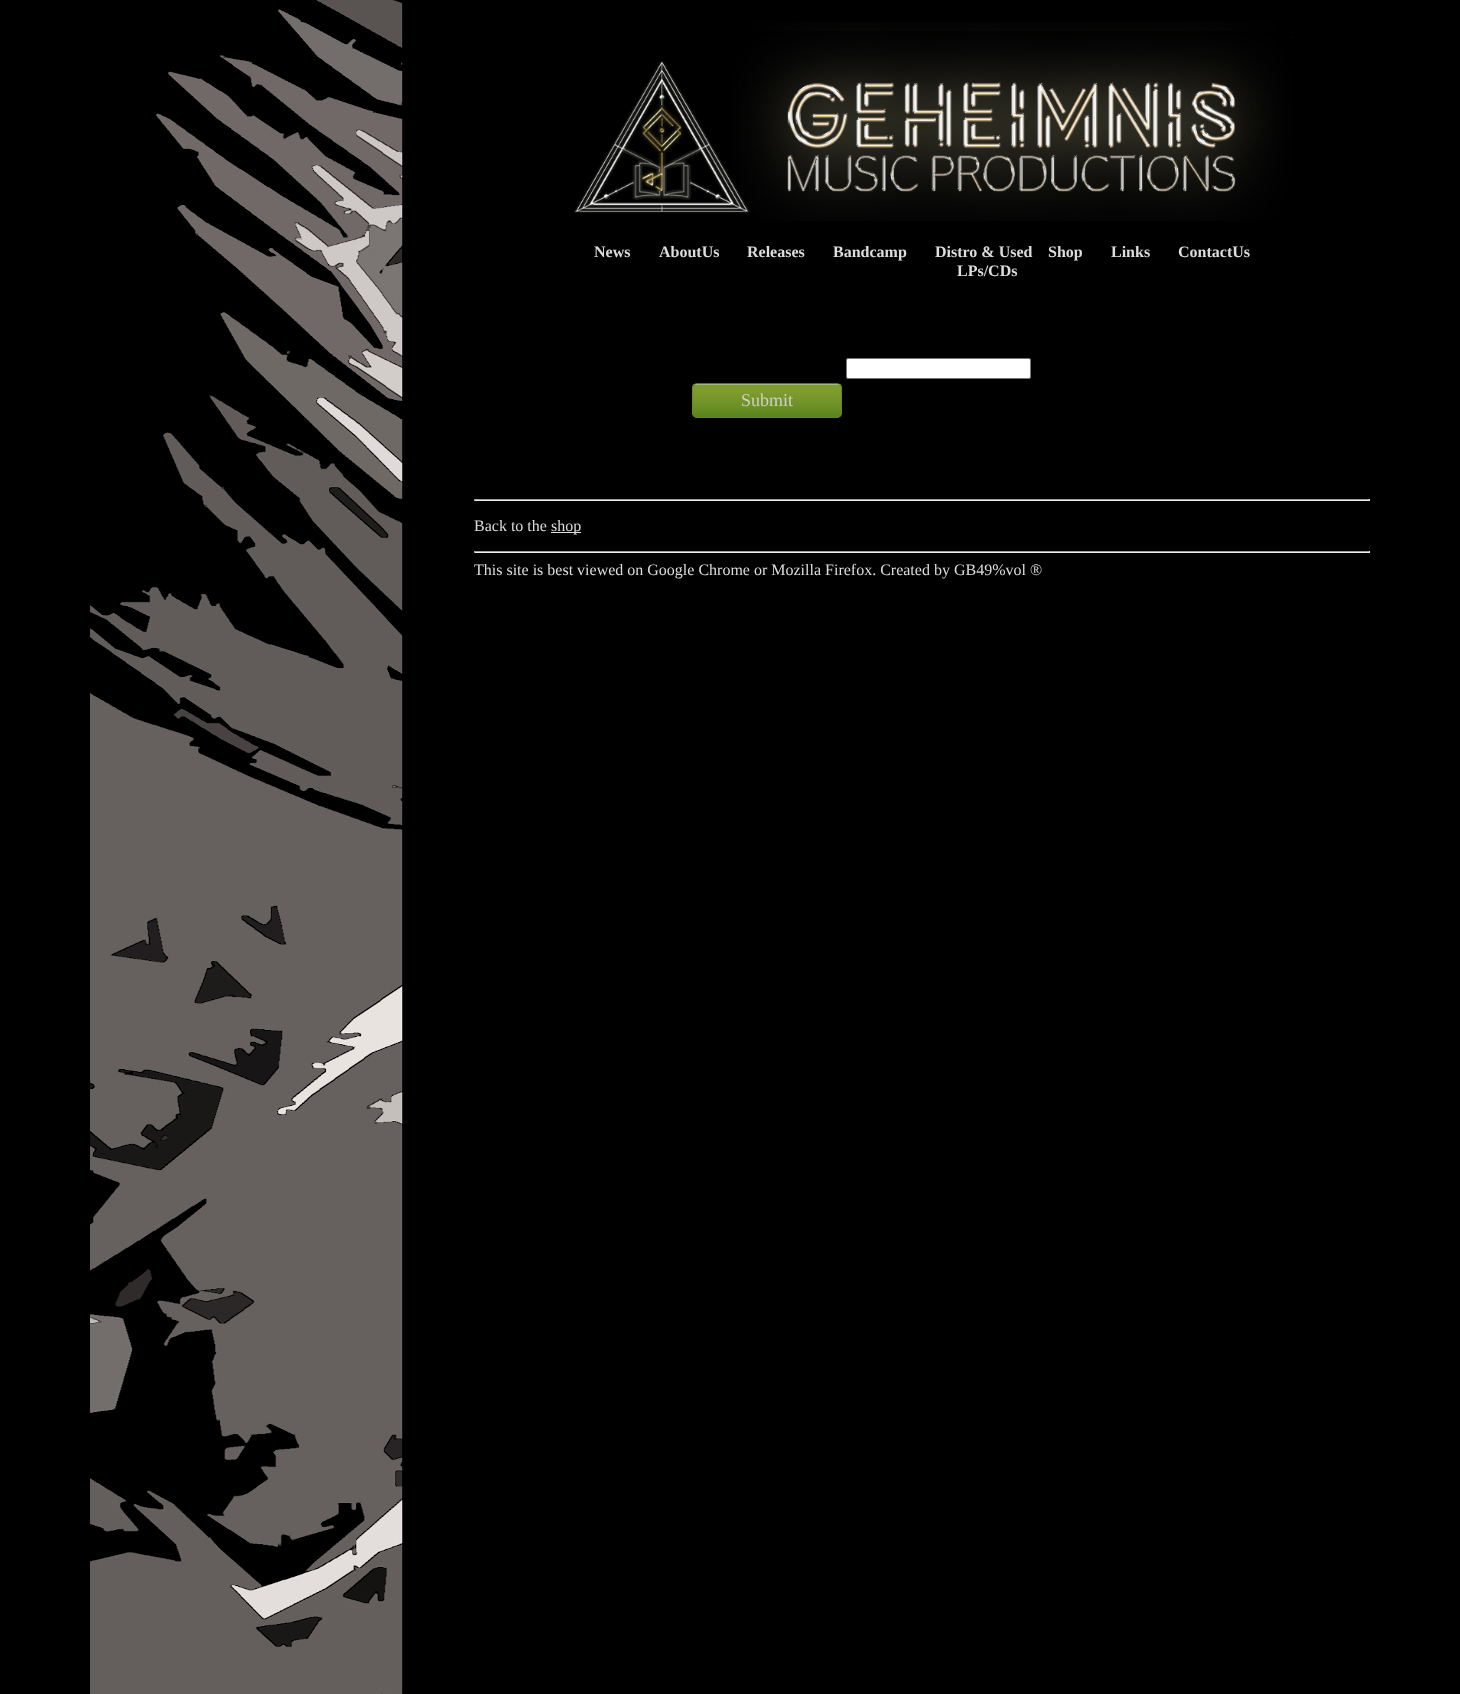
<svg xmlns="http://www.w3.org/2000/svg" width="1460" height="1694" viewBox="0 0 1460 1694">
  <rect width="100%" height="100%" fill="rgb(0,0,0)"/>
  <image x="90" y="0" width="313" height="1694" href="pic1.png"/>
  <image x="574" y="22" width="719" height="199" href="pic2.png"/>
  <g font-family="Liberation Serif" font-size="16" font-weight="bold" fill="rgb(221,221,221)">
    <text x="594" y="257">News</text>
    <text x="659" y="257">AboutUs</text>
    <text x="747" y="257">Releases</text>
    <text x="833" y="257">Bandcamp</text>
    <text x="935" y="257">Distro &amp; Used</text>
    <text x="957" y="276">LPs/CDs</text>
    <text x="1048" y="257">Shop</text>
    <text x="1111" y="257">Links</text>
    <text x="1178" y="257">ContactUs</text>
  </g>
  <rect x="846.5" y="358.5" width="184" height="20" rx="1.5" fill="rgb(255,255,255)" stroke="rgb(118,118,118)"/>
  <image x="692" y="384" width="150" height="34" href="pic3.png"/>
  <rect x="692.5" y="383.5" width="149" height="34" rx="4.5" fill="none" stroke="rgba(96,137,37,0.85)"/>
  <text x="741" y="406" font-family="Liberation Serif" font-size="18" fill="rgb(205,210,194)">Submit</text>
  <rect x="474" y="499" width="896" height="1" fill="rgb(159,159,159)"/>
  <rect x="1369" y="499" width="1" height="2" fill="rgb(238,238,238)"/>
  <rect x="474" y="500" width="896" height="1" fill="rgb(238,238,238)"/>
  <rect x="474" y="499" width="1" height="2" fill="rgb(159,159,159)"/>
  <text x="474" y="531" font-family="Liberation Serif" font-size="16" fill="rgb(221,221,221)">Back to the</text>
  <rect x="551" y="532" width="30" height="1" fill="rgb(221,221,221)"/>
  <text x="551" y="531" font-family="Liberation Serif" font-size="16" fill="rgb(221,221,221)">shop</text>
  <rect x="474" y="551" width="896" height="1" fill="rgb(159,159,159)"/>
  <rect x="1369" y="551" width="1" height="2" fill="rgb(238,238,238)"/>
  <rect x="474" y="552" width="896" height="1" fill="rgb(238,238,238)"/>
  <rect x="474" y="551" width="1" height="2" fill="rgb(159,159,159)"/>
  <text x="474" y="575" font-family="Liberation Serif" font-size="16" fill="rgb(221,221,221)">This site is best viewed on Google Chrome or Mozilla Firefox. Created by GB49%vol ®</text>
</svg>
